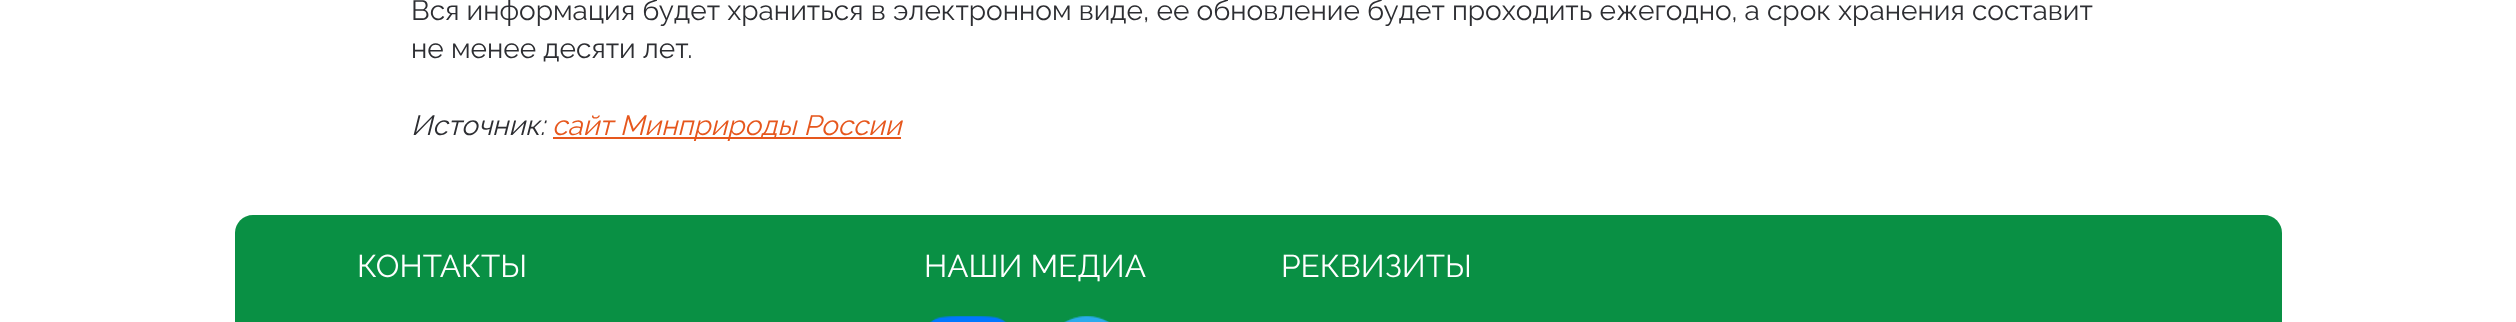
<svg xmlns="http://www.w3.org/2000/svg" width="2516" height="322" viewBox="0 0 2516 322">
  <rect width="100%" height="100%" fill="rgb(255,255,255)"/>
  <g font-family="Raleway" font-size="28" fill="rgb(45,46,50)">
    <text>
      <tspan x="411" y="20">Вся информация будет храниться в электронном виде, ее обновление будет проходить ежегодно, а срок хранения составит</tspan>
      <tspan x="411" y="58">не менее десяти лет.</tspan>
    </text>
  </g>
  <text x="411" y="135" font-family="Raleway" font-size="28" font-style="italic" fill="rgb(45,46,50)">Источник:</text>
  <rect x="553" y="137" width="348" height="2" fill="rgb(230,87,29)"/>
  <text x="552" y="135" font-family="Raleway" font-size="28" font-style="italic" fill="rgb(230,87,29)">сайт Минприроды России</text>
  <path d="M253 215H2264C2274 215 2282 223 2282 233V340H235V233C235 223 243 215 253 215Z" fill="rgb(9,144,68)"/>
  <g font-family="Raleway" font-size="31.5" fill="rgb(255,255,255)">
    <text x="357" y="277">КОНТАКТЫ</text>
    <text x="924" y="277">НАШИ МЕДИА</text>
  </g>
  <image x="930" y="316" width="77" height="6" href="pic1.png"/>
  <image x="1064" y="316" width="46" height="6" href="pic2.png"/>
  <text x="1281" y="277" font-family="Raleway" font-size="31.5" fill="rgb(255,255,255)">РЕКВИЗИТЫ</text>
</svg>
